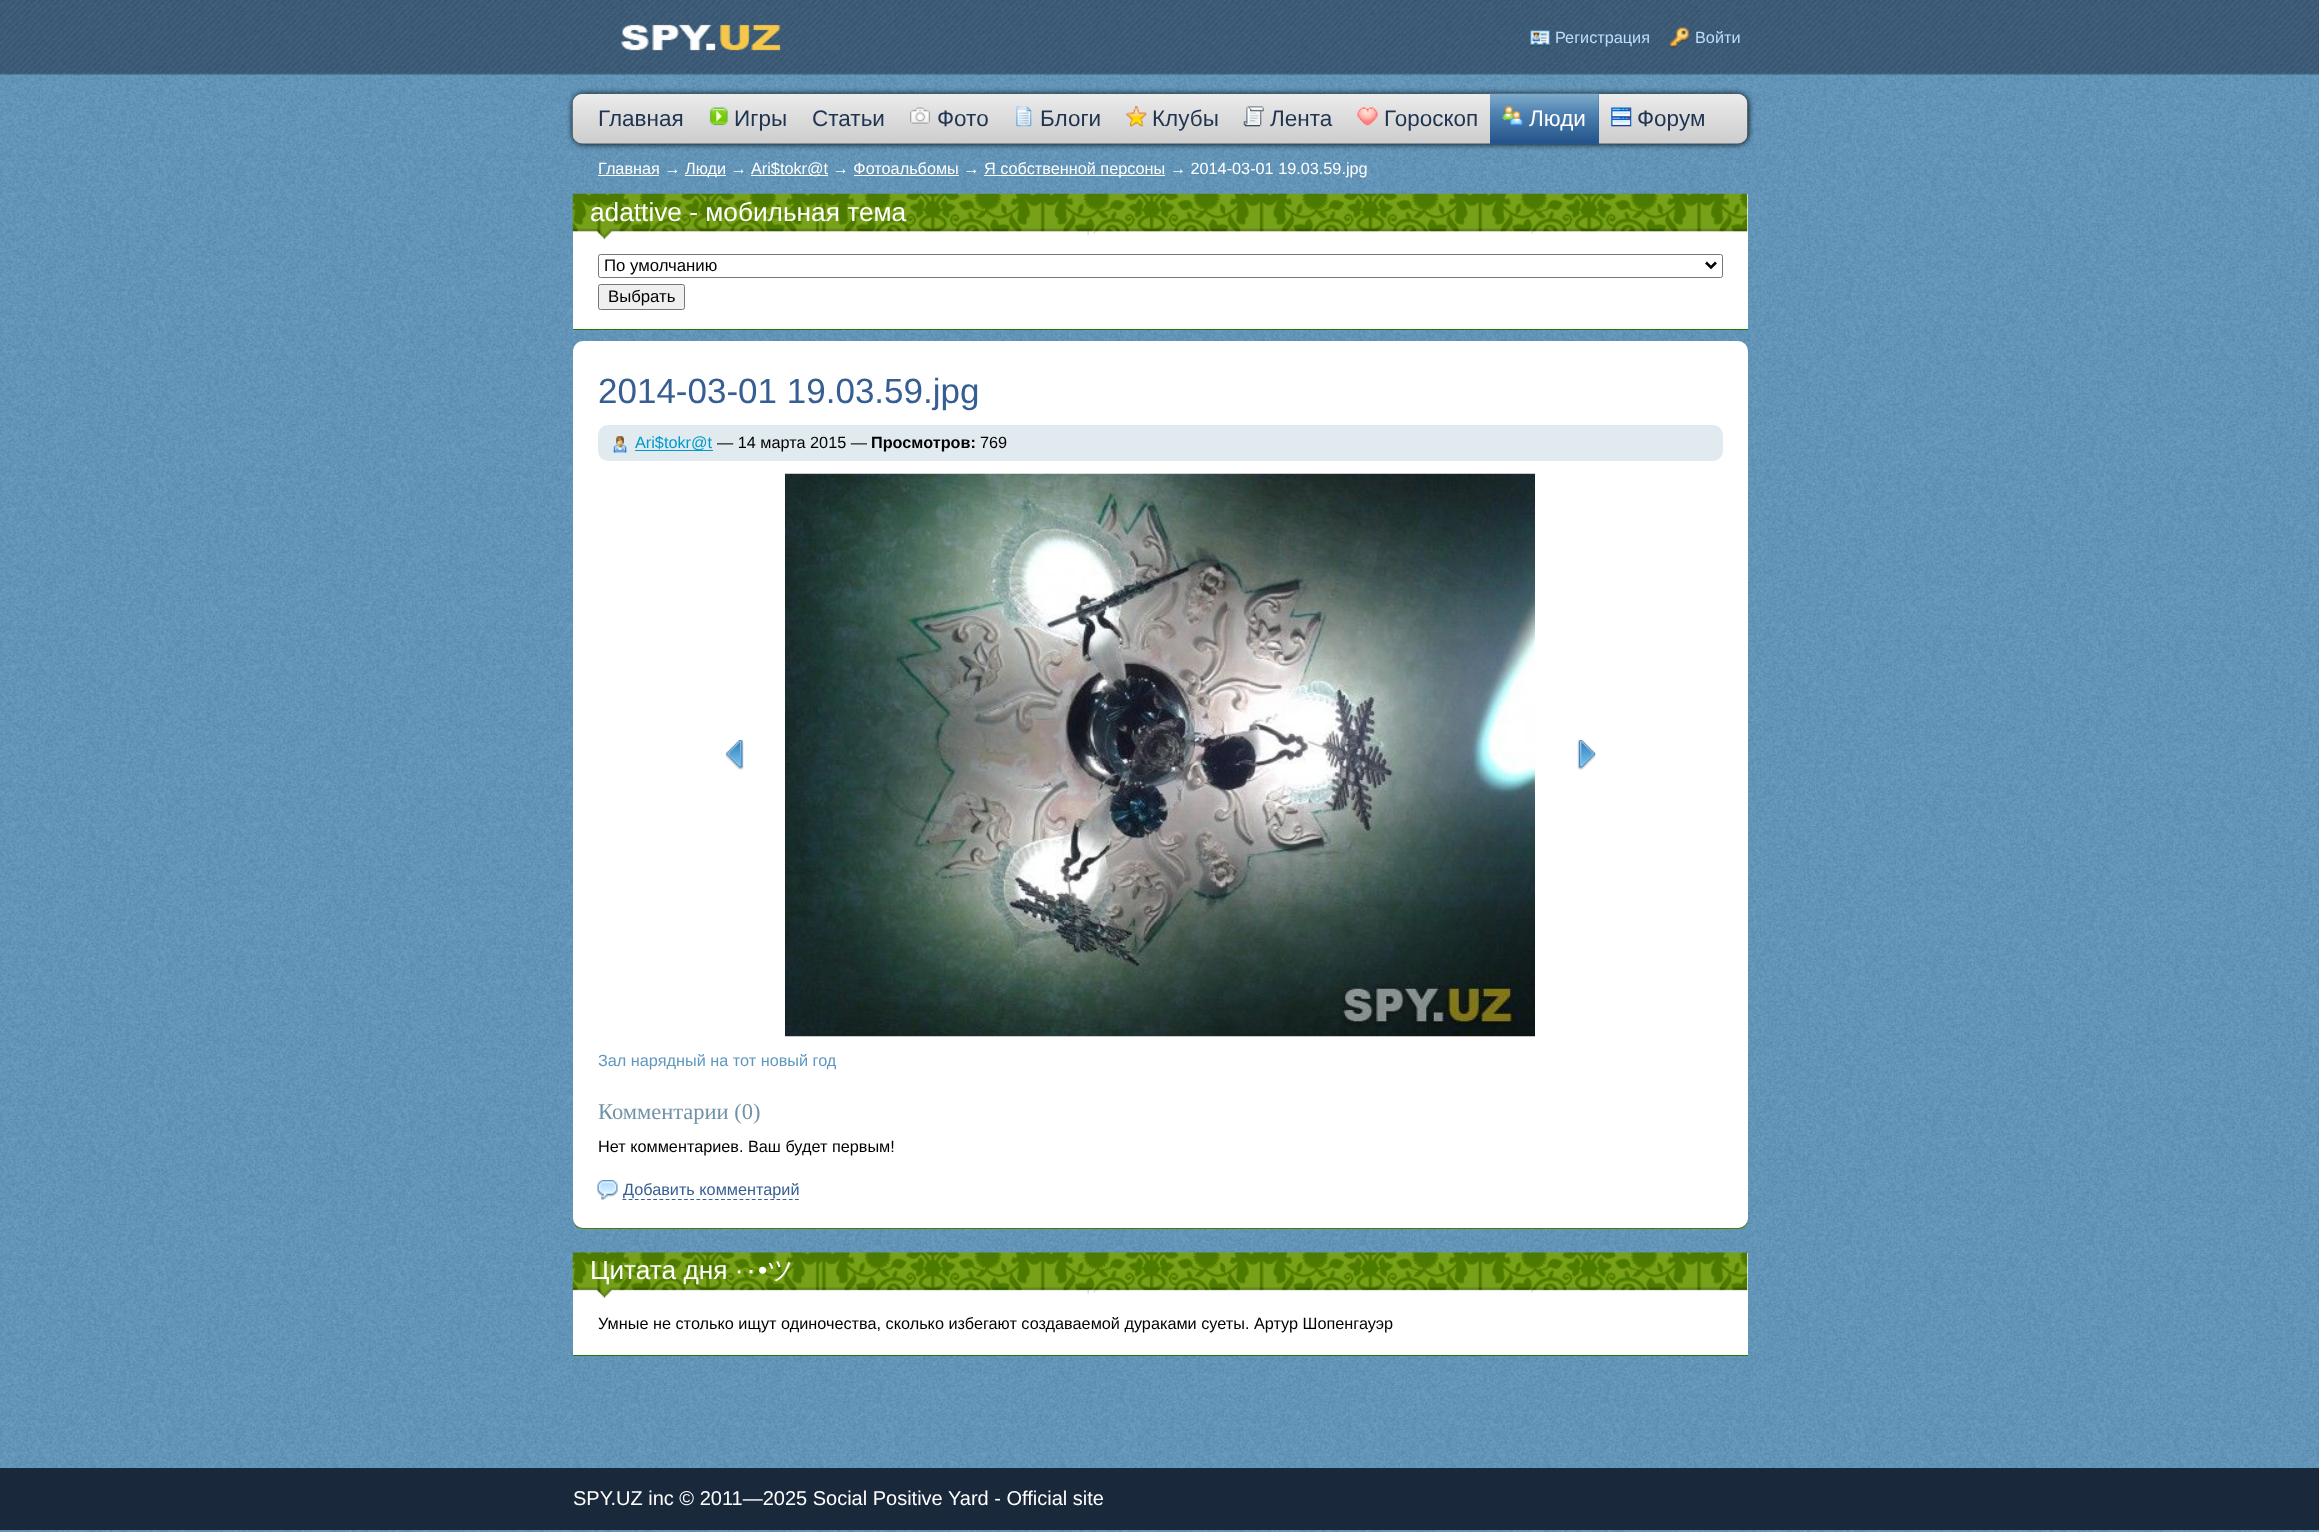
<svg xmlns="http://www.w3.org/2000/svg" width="2319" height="1532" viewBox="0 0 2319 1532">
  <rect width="100%" height="100%" fill="rgb(255,255,255)"/>
  <image x="0" y="0" width="2319" height="1532" href="pic1.png"/>
  <image x="0" y="0" width="2319" height="75" href="pic2.png"/>
  <image x="621" y="24" width="160" height="27" href="pic3.png"/>
  <image x="1530" y="29" width="20" height="18" href="pic4.png"/>
  <text x="1555" y="43" font-family="Liberation Sans" font-size="16.25" fill="rgb(191,222,255)">Регистрация</text>
  <image x="1670" y="27" width="19" height="21" href="pic5.png"/>
  <text x="1695" y="43" font-family="Liberation Sans" font-size="16.25" fill="rgb(191,222,255)">Войти</text>
  <rect x="573" y="94" width="1175" height="50" rx="10" fill="rgb(0,0,0)" filter="blur(3px)"/>
  <image x="572" y="93" width="1176" height="51" href="pic6.png"/>
  <text x="598" y="126" font-family="Liberation Sans" font-size="22.5" fill="rgb(31,52,81)">Главная</text>
  <image x="709" y="107" width="19" height="19" href="pic7.png"/>
  <g font-family="Liberation Sans" font-size="22.5" fill="rgb(31,52,81)">
    <text x="734" y="126">Игры</text>
    <text x="812" y="126">Статьи</text>
  </g>
  <image x="910" y="107" width="20" height="17" href="pic8.png"/>
  <text x="937" y="126" font-family="Liberation Sans" font-size="22.5" fill="rgb(31,52,81)">Фото</text>
  <image x="1016" y="106" width="16" height="21" href="pic9.png"/>
  <text x="1040" y="126" font-family="Liberation Sans" font-size="22.5" fill="rgb(31,52,81)">Блоги</text>
  <image x="1126" y="106" width="21" height="21" href="pic10.png"/>
  <text x="1152" y="126" font-family="Liberation Sans" font-size="22.5" fill="rgb(31,52,81)">Клубы</text>
  <image x="1243" y="106" width="21" height="21" href="pic11.png"/>
  <text x="1270" y="126" font-family="Liberation Sans" font-size="22.5" fill="rgb(31,52,81)">Лента</text>
  <image x="1357" y="107" width="21" height="19" href="pic12.png"/>
  <text x="1384" y="126" font-family="Liberation Sans" font-size="22.5" fill="rgb(31,52,81)">Гороскоп</text>
  <rect x="1490" y="94" width="109" height="50" fill="rgb(55,94,147)"/>
  <image x="1490" y="93" width="109" height="51" href="pic13.png"/>
  <image x="1502" y="106" width="21" height="20" href="pic14.png"/>
  <text x="1529" y="126" font-family="Liberation Sans" font-size="22.5" fill="rgb(255,255,255)">Люди</text>
  <image x="1611" y="107" width="21" height="20" href="pic15.png"/>
  <text x="1637" y="126" font-family="Liberation Sans" font-size="22.5" fill="rgb(31,52,81)">Форум</text>
  <text x="598" y="174" font-family="Liberation Sans" font-size="16.25" fill="rgb(255,255,255)">Главная →</text>
  <rect x="598" y="175" width="61" height="1" fill="rgb(255,255,255)"/>
  <rect x="685" y="175" width="41" height="1" fill="rgb(255,255,255)"/>
  <text x="685" y="174" font-family="Liberation Sans" font-size="16.25" fill="rgb(255,255,255)">Люди →</text>
  <rect x="751" y="175" width="77" height="1" fill="rgb(255,255,255)"/>
  <text x="751" y="174" font-family="Liberation Sans" font-size="16.25" fill="rgb(255,255,255)">Ari$tokr@t → Фотоальбомы →</text>
  <rect x="984" y="175" width="181" height="1" fill="rgb(255,255,255)"/>
  <text x="984" y="174" font-family="Liberation Sans" font-size="16.25" fill="rgb(255,255,255)">Я собственной персоны → 2014-03-01 19.03.59.jpg</text>
  <rect x="854" y="175" width="105" height="1" fill="rgb(255,255,255)"/>
  <path d="M573 329V330H1748V195V329Z" fill="rgb(29,123,0)"/>
  <rect x="573" y="194" width="1175" height="135" fill="rgb(255,255,255)"/>
  <image x="572" y="193" width="1176" height="46" href="pic16.png"/>
  <text x="590" y="221" font-family="Liberation Sans" font-size="26.25" fill="rgb(255,255,255)">adattive - мобильная тема</text>
  <rect x="598.5" y="254.5" width="1124" height="23" rx="2" fill="none" stroke="rgb(118,118,118)"/>
  <path d="M1706 262.5L1711 267.5L1716 262.5" fill="none" stroke="rgb(0,0,0)" stroke-width="2.5"/>
  <text x="604" y="271" font-family="Liberation Sans" font-size="16.75" fill="rgb(0,0,0)">По умолчанию</text>
  <rect x="598.5" y="284.5" width="86" height="25" rx="2" fill="rgb(239,239,239)" stroke="rgb(118,118,118)"/>
  <text x="608" y="302" font-family="Liberation Sans" font-size="16.75" fill="rgb(0,0,0)">Выбрать</text>
  <path d="M573 1221C574 1226 578 1229 583 1229H1738C1744 1229 1748 1225 1748 1219V353L1747 349L1748 1218C1748 1223 1743 1228 1738 1228H582C578 1228 575 1225 573 1221Z" fill="rgb(76,123,0)"/>
  <rect x="573" y="341" width="1175" height="887" rx="10" fill="rgb(255,255,255)"/>
  <text x="598" y="403" font-family="Liberation Sans" font-size="35" fill="rgb(55,94,147)">2014-03-01 19.03.59.jpg</text>
  <rect x="598" y="425" width="1125" height="36" rx="10" fill="rgb(224,234,239)"/>
  <image x="613" y="436" width="14" height="17" href="pic17.png"/>
  <rect x="635" y="450" width="78" height="1" fill="rgb(0,153,204)"/>
  <text x="635" y="448" font-family="Liberation Sans" font-size="16.25" fill="rgb(0,153,204)">Ari$tokr@t</text>
  <text x="717" y="448" font-family="Liberation Sans" font-size="16.25" fill="rgb(0,0,0)">— 14 марта 2015 —</text>
  <text x="871" y="448" font-family="Liberation Sans" font-size="16.25" font-weight="bold" fill="rgb(0,0,0)">Просмотров:</text>
  <text x="980" y="448" font-family="Liberation Sans" font-size="16.25" fill="rgb(0,0,0)">769</text>
  <image x="725" y="739" width="19" height="31" href="pic18.png"/>
  <image x="785" y="473" width="750" height="564" href="pic19.png"/>
  <image x="1577" y="739" width="19" height="31" href="pic20.png"/>
  <text x="598" y="1066" font-family="Liberation Sans" font-size="16.25" fill="rgb(95,152,191)">Зал нарядный на тот новый год</text>
  <text x="598" y="1119" font-family="Liberation Serif" font-size="22.5" fill="rgb(113,146,166)">Комментарии (0)</text>
  <text x="598" y="1152" font-family="Liberation Sans" font-size="16.25" fill="rgb(0,0,0)">Нет комментариев. Ваш будет первым!</text>
  <image x="597" y="1180" width="21" height="20" href="pic21.png"/>
  <path d="M622.5 1199.5H799" fill="none" stroke="rgb(55,94,147)" stroke-width="1.2" stroke-dasharray="3.75 2.41"/>
  <text x="623" y="1195" font-family="Liberation Sans" font-size="16.25" fill="rgb(55,94,147)">Добавить комментарий</text>
  <path d="M573 1355V1356H1748V1254V1355Z" fill="rgb(29,123,0)"/>
  <rect x="573" y="1253" width="1175" height="102" fill="rgb(255,255,255)"/>
  <image x="572" y="1252" width="1176" height="46" href="pic22.png"/>
  <text x="590" y="1279" font-family="Liberation Sans" font-size="26.25" fill="rgb(255,255,255)">Цитата дня ·</text>
  <text x="744" y="1279" font-family="DejaVu Sans" font-size="26.25" fill="rgb(255,255,255)">٠</text>
  <text x="758" y="1279" font-family="Liberation Sans" font-size="26.25" fill="rgb(255,255,255)">•</text>
  <text x="767" y="1279" font-family="WenQuanYi Zen Hei" font-size="26.25" font-weight="500" fill="rgb(255,255,255)">ツ</text>
  <text x="598" y="1329" font-family="Liberation Sans" font-size="16.25" fill="rgb(0,0,0)">Умные не столько ищут одиночества, сколько избегают создаваемой дураками суеты. Артур Шопенгауэр</text>
  <rect x="0" y="1468" width="2319" height="62" fill="rgb(25,40,59)"/>
  <text x="573" y="1505" font-family="Liberation Sans" font-size="20" fill="rgb(255,255,255)">SPY.UZ inc © 2011—2025 Social Positive Yard - Official site</text>
</svg>
